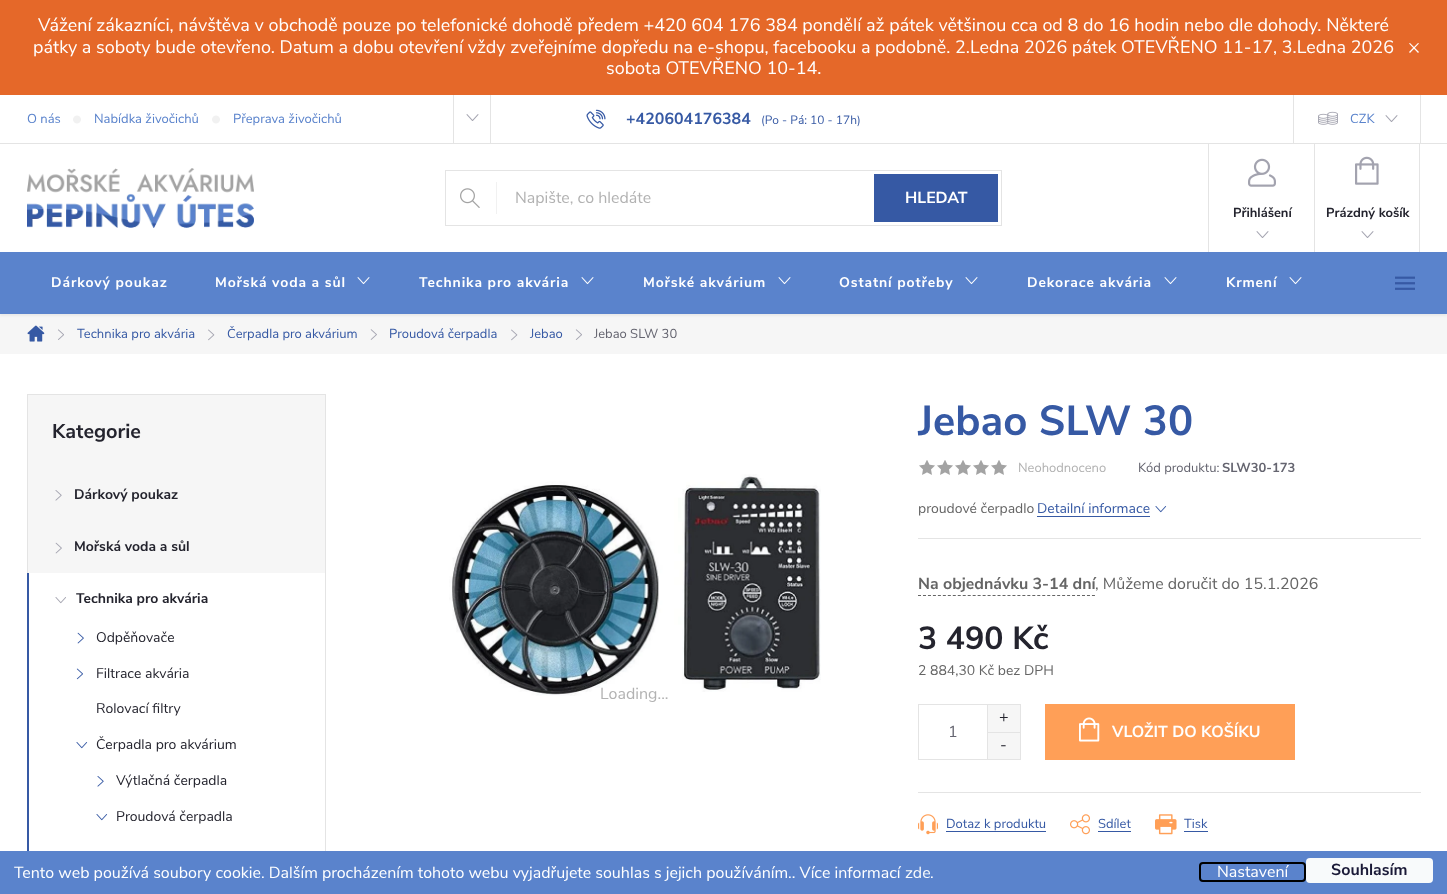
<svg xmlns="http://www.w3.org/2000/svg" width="1447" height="894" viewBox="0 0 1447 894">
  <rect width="100%" height="100%" fill="rgb(255,255,255)"/>
  <rect x="0" y="0" width="1447" height="95" fill="rgb(229,104,41)"/>
  <g font-family="Nunito Sans" font-size="18" fill="rgb(255,255,255)">
    <text x="38" y="31">Vážení zákazníci, návštěva v obchodě pouze po telefonické dohodě předem +420 604 176 384 pondělí až pátek většinou cca od 8 do 16 hodin nebo dle dohody. Některé</text>
    <text x="33" y="53">pátky a soboty bude otevřeno. Datum a dobu otevření vždy zveřejníme dopředu na e-shopu, facebooku a podobně. 2.Ledna 2026 pátek OTEVŘENO 11-17, 3.Ledna 2026</text>
    <text x="606" y="74">sobota OTEVŘENO 10-14.</text>
  </g>
  <path d="M1418 43L1419 43.5L1410 53L1409 52Z" fill="rgb(255,255,255)"/>
  <path d="M1410 43L1419 52L1418 53L1409 43.5Z" fill="rgb(255,255,255)"/>
  <rect x="0" y="143" width="1447" height="1" fill="rgb(228,228,228)"/>
  <text x="27" y="123" font-family="Nunito Sans" font-size="13" fill="rgb(90,131,204)">O nás</text>
  <image x="73" y="115" width="8" height="9" href="pic1.png"/>
  <text x="94" y="123" font-family="Nunito Sans" font-size="13" fill="rgb(90,131,204)">Nabídka živočichů</text>
  <image x="212" y="115" width="8" height="9" href="pic1.png"/>
  <text x="233" y="123" font-family="Nunito Sans" font-size="13" fill="rgb(90,131,204)">Přeprava živočichů</text>
  <rect x="490" y="95" width="1" height="48" fill="rgb(228,228,228)"/>
  <rect x="453" y="95" width="1" height="48" fill="rgb(228,228,228)"/>
  <image x="466" y="114" width="13" height="7" href="pic2.png"/>
  <image x="586" y="109" width="20" height="20" href="pic3.png"/>
  <text x="626" y="124" font-family="Nunito Sans" font-size="16" font-weight="bold" fill="rgb(54,89,164)">+420604176384</text>
  <text x="761" y="124" font-family="Nunito Sans" font-size="12" fill="rgb(54,89,164)">(Po - Pá: 10 - 17h)</text>
  <rect x="1420" y="95" width="1" height="48" fill="rgb(228,228,228)"/>
  <rect x="1293" y="95" width="1" height="48" fill="rgb(228,228,228)"/>
  <image x="1318" y="111" width="20" height="14" href="pic4.png"/>
  <text x="1350" y="123" font-family="Nunito Sans" font-size="13" fill="rgb(90,131,204)">CZK</text>
  <image x="1385" y="115" width="13" height="7" href="pic2.png"/>
  <image x="27" y="168" width="227" height="60" href="pic5.png"/>
  <rect x="445.5" y="170.5" width="556" height="55" fill="none" stroke="rgb(228,228,228)"/>
  <rect x="496" y="182" width="1" height="32" fill="rgb(241,241,241)"/>
  <image x="460" y="188" width="20" height="20" href="pic6.png"/>
  <text x="515" y="203" font-family="Nunito Sans" font-size="16" fill="rgb(178,178,178)">Napište, co hledáte</text>
  <rect x="874" y="174" width="124" height="48" fill="rgb(54,89,164)"/>
  <text x="905" y="203" font-family="Nunito Sans" font-size="16" font-weight="bold" fill="rgb(255,255,255)">HLEDAT</text>
  <rect x="1208" y="144" width="1" height="108" fill="rgb(228,228,228)"/>
  <image x="1248" y="158" width="28" height="29" href="pic7.png"/>
  <text x="1233" y="217" font-family="Nunito Sans" font-size="13" font-weight="bold" fill="rgb(36,36,46)">Přihlášení</text>
  <image x="1256" y="231" width="13" height="7" href="pic2.png"/>
  <rect x="1419" y="144" width="1" height="108" fill="rgb(228,228,228)"/>
  <rect x="1314" y="144" width="1" height="108" fill="rgb(228,228,228)"/>
  <image x="1355" y="156" width="24" height="29" href="pic8.png"/>
  <text x="1326" y="217" font-family="Nunito Sans" font-size="13" font-weight="bold" fill="rgb(36,36,46)">Prázdný košík</text>
  <image x="1361" y="231" width="13" height="7" href="pic2.png"/>
  <rect x="0" y="314" width="1447" height="40" fill="rgb(246,246,246)"/>
  <rect x="0" y="254" width="1447" height="62" fill="rgba(0,0,0,0.05)" filter="blur(1px)"/>
  <rect x="0" y="252" width="1447" height="62" fill="rgb(90,131,204)"/>
  <g font-family="Nunito Sans" font-size="14" font-weight="bold" letter-spacing="0.9" fill="rgb(255,255,255)">
    <text x="51" y="287">Dárkový poukaz</text>
    <text x="215" y="287">Mořská voda a sůl</text>
  </g>
  <image x="357" y="277" width="13" height="8" href="pic9.png"/>
  <text x="419" y="287" font-family="Nunito Sans" font-size="14" font-weight="bold" letter-spacing="0.9" fill="rgb(255,255,255)">Technika pro akvária</text>
  <image x="581" y="277" width="13" height="8" href="pic9.png"/>
  <text x="643" y="287" font-family="Nunito Sans" font-size="14" font-weight="bold" letter-spacing="0.9" fill="rgb(255,255,255)">Mořské akvárium</text>
  <image x="778" y="277" width="13" height="8" href="pic9.png"/>
  <text x="839" y="287" font-family="Nunito Sans" font-size="14" font-weight="bold" letter-spacing="0.9" fill="rgb(255,255,255)">Ostatní potřeby</text>
  <image x="965" y="277" width="13" height="8" href="pic9.png"/>
  <text x="1027" y="287" font-family="Nunito Sans" font-size="14" font-weight="bold" letter-spacing="0.9" fill="rgb(255,255,255)">Dekorace akvária</text>
  <image x="1164" y="277" width="13" height="8" href="pic9.png"/>
  <text x="1226" y="287" font-family="Nunito Sans" font-size="14" font-weight="bold" letter-spacing="0.9" fill="rgb(255,255,255)">Krmení</text>
  <image x="1289" y="277" width="13" height="8" href="pic9.png"/>
  <image x="1395" y="276" width="20" height="14" href="pic10.png"/>
  <image x="27" y="325" width="18" height="17" href="pic11.png"/>
  <image x="58" y="329" width="6" height="11" href="pic12.png"/>
  <text x="77" y="338" font-family="Nunito Sans" font-size="13" fill="rgb(54,89,164)">Technika pro akvária</text>
  <image x="208" y="329" width="7" height="12" href="pic13.png"/>
  <text x="227" y="338" font-family="Nunito Sans" font-size="13" fill="rgb(54,89,164)">Čerpadla pro akvárium</text>
  <image x="370" y="329" width="7" height="11" href="pic14.png"/>
  <text x="389" y="338" font-family="Nunito Sans" font-size="13" fill="rgb(54,89,164)">Proudová čerpadla</text>
  <image x="511" y="329" width="7" height="12" href="pic15.png"/>
  <text x="530" y="338" font-family="Nunito Sans" font-size="13" fill="rgb(54,89,164)">Jebao</text>
  <image x="575" y="329" width="7" height="11" href="pic16.png"/>
  <text x="594" y="338" font-family="Nunito Sans" font-size="13" fill="rgb(101,101,112)">Jebao SLW 30</text>
  <rect x="28" y="395" width="297" height="178" fill="rgb(246,246,246)"/>
  <rect x="27.5" y="394.5" width="298" height="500" fill="none" stroke="rgb(228,228,228)"/>
  <text x="52" y="438" font-family="Nunito Sans" font-size="20" font-weight="bold" fill="rgb(36,36,46)">Kategorie</text>
  <image x="55" y="490" width="7" height="11" href="pic17.png"/>
  <text x="74" y="499" font-family="Nunito Sans" font-size="14" font-weight="bold" fill="rgb(36,36,46)">Dárkový poukaz</text>
  <image x="55" y="542" width="7" height="12" href="pic18.png"/>
  <text x="74" y="551" font-family="Nunito Sans" font-size="14" font-weight="bold" fill="rgb(36,36,46)">Mořská voda a sůl</text>
  <rect x="27" y="573" width="2" height="278" fill="rgb(54,89,164)"/>
  <image x="55" y="597" width="11" height="7" href="pic19.png"/>
  <text x="76" y="603" font-family="Nunito Sans" font-size="14" font-weight="bold" fill="rgb(36,36,46)">Technika pro akvária</text>
  <image x="77" y="632" width="7" height="12" href="pic20.png"/>
  <text x="96" y="642" font-family="Nunito Sans" font-size="14" fill="rgb(36,36,46)">Odpěňovače</text>
  <image x="76" y="668" width="7" height="12" href="pic21.png"/>
  <g font-family="Nunito Sans" font-size="14" fill="rgb(36,36,46)">
    <text x="96" y="678">Filtrace akvária</text>
    <text x="96" y="713">Rolovací filtry</text>
  </g>
  <image x="76" y="742" width="12" height="7" href="pic22.png"/>
  <text x="96" y="749" font-family="Nunito Sans" font-size="14" fill="rgb(36,36,46)">Čerpadla pro akvárium</text>
  <image x="97" y="776" width="7" height="11" href="pic23.png"/>
  <text x="116" y="785" font-family="Nunito Sans" font-size="14" fill="rgb(36,36,46)">Výtlačná čerpadla</text>
  <image x="96" y="814" width="12" height="7" href="pic22.png"/>
  <text x="116" y="821" font-family="Nunito Sans" font-size="14" fill="rgb(36,36,46)">Proudová čerpadla</text>
  <image x="449" y="474" width="372" height="222" href="pic24.png"/>
  <text x="600" y="699" font-family="Nunito Sans" font-size="16" fill="rgb(178,178,178)">Loading...</text>
  <text x="918" y="435" font-family="Nunito Sans" font-size="42" font-weight="bold" fill="rgb(54,89,164)">Jebao SLW 30</text>
  <image x="919" y="460" width="16" height="15" href="pic25.png"/>
  <image x="937" y="460" width="16" height="15" href="pic25.png"/>
  <image x="955" y="460" width="16" height="15" href="pic25.png"/>
  <image x="973" y="460" width="16" height="15" href="pic25.png"/>
  <image x="991" y="460" width="16" height="15" href="pic25.png"/>
  <text x="1018" y="472" font-family="Nunito Sans" font-size="13" fill="rgb(178,178,178)">Neohodnoceno</text>
  <text x="1138" y="472" font-family="Nunito Sans" font-size="13" fill="rgb(101,101,112)">Kód produktu:</text>
  <text x="1222" y="472" font-family="Nunito Sans" font-size="13" font-weight="bold" fill="rgb(101,101,112)">SLW30-173</text>
  <rect x="918" y="538" width="503" height="1" fill="rgb(228,228,228)"/>
  <text x="918" y="513" font-family="Nunito Sans" font-size="14" fill="rgb(101,101,101)">proudové čerpadlo</text>
  <text x="1037" y="513" font-family="Nunito Sans" font-size="14" fill="rgb(54,89,164)">Detailní informace</text>
  <rect x="1037" y="516" width="113" height="1" fill="rgb(54,89,164)"/>
  <image x="1155" y="506" width="12" height="7" href="pic22.png"/>
  <text x="918" y="589" font-family="Nunito Sans" font-size="16" font-weight="bold" fill="rgb(101,101,101)">Na objednávku 3-14 dní</text>
  <path d="M918 595.5H1095" fill="none" stroke="rgb(101,101,101)" stroke-dasharray="3 1.97"/>
  <text x="1095" y="589" font-family="Nunito Sans" font-size="16" fill="rgb(101,101,101)">, Můžeme doručit do 15.1.2026</text>
  <text x="918" y="649" font-family="Nunito Sans" font-size="32" font-weight="bold" fill="rgb(36,36,46)">3 490 Kč</text>
  <text x="918" y="675" font-family="Nunito Sans" font-size="14" fill="rgb(101,101,101)">2 884,30 Kč bez DPH</text>
  <rect x="918.5" y="704.5" width="102" height="55" fill="none" stroke="rgb(228,228,228)"/>
  <rect x="988" y="705" width="32" height="27" fill="rgb(246,246,246)"/>
  <rect x="987" y="705" width="1" height="27" fill="rgb(228,228,228)"/>
  <text x="999" y="722" font-family="Nunito Sans" font-size="16" fill="rgb(36,36,46)">+</text>
  <text x="948" y="737" font-family="Nunito Sans" font-size="16" fill="rgb(101,101,112)">1</text>
  <rect x="988" y="733" width="32" height="26" fill="rgb(246,246,246)"/>
  <rect x="987" y="732" width="33" height="1" fill="rgb(228,228,228)"/>
  <rect x="987" y="732" width="1" height="27" fill="rgb(228,228,228)"/>
  <text x="1000" y="750" font-family="Nunito Sans" font-size="16" fill="rgb(36,36,46)">-</text>
  <rect x="1045" y="704" width="250" height="56" fill="rgb(255,159,87)"/>
  <image x="1079" y="717" width="21" height="25" href="pic26.png"/>
  <text x="1112" y="737" font-family="Nunito Sans" font-size="16" font-weight="bold" fill="rgb(255,255,255)">VLOŽIT DO KOŠÍKU</text>
  <rect x="918" y="792" width="503" height="1" fill="rgb(228,228,228)"/>
  <image x="918" y="814" width="20" height="21" href="pic27.png"/>
  <text x="946" y="828" font-family="Nunito Sans" font-size="13" fill="rgb(54,89,164)">Dotaz k produktu</text>
  <rect x="946" y="831" width="100" height="1" fill="rgb(54,89,164)"/>
  <image x="1070" y="814" width="20" height="21" href="pic28.png"/>
  <text x="1098" y="828" font-family="Nunito Sans" font-size="13" fill="rgb(54,89,164)">Sdílet</text>
  <rect x="1098" y="831" width="33" height="1" fill="rgb(54,89,164)"/>
  <image x="1155" y="814" width="22" height="21" href="pic29.png"/>
  <text x="1184" y="828" font-family="Nunito Sans" font-size="13" fill="rgb(54,89,164)">Tisk</text>
  <rect x="1184" y="831" width="24" height="1" fill="rgb(54,89,164)"/>
  <rect x="0" y="851" width="1447" height="43" fill="rgb(90,131,204)"/>
  <text x="14" y="878" font-family="Nunito Sans" font-size="16" fill="rgb(255,255,255)">Tento web používá soubory cookie. Dalším procházením tohoto webu vyjadřujete souhlas s jejich používáním.. Více informací</text>
  <text x="905" y="878" font-family="Nunito Sans" font-size="16" fill="rgb(248,250,251)">zde</text>
  <text x="930" y="878" font-family="Nunito Sans" font-size="16" fill="rgb(255,255,255)">.</text>
  <rect x="1200" y="863" width="105" height="18" rx="3" fill="none" stroke="rgb(0,0,0)" stroke-width="2"/>
  <text x="1217" y="877" font-family="Nunito Sans" font-size="16" fill="rgb(255,255,255)">Nastavení</text>
  <rect x="1306" y="858" width="127" height="25" rx="4" fill="rgb(248,250,251)"/>
  <text x="1331" y="875" font-family="Nunito Sans" font-size="16" font-weight="bold" fill="rgb(26,25,55)">Souhlasím</text>
</svg>
